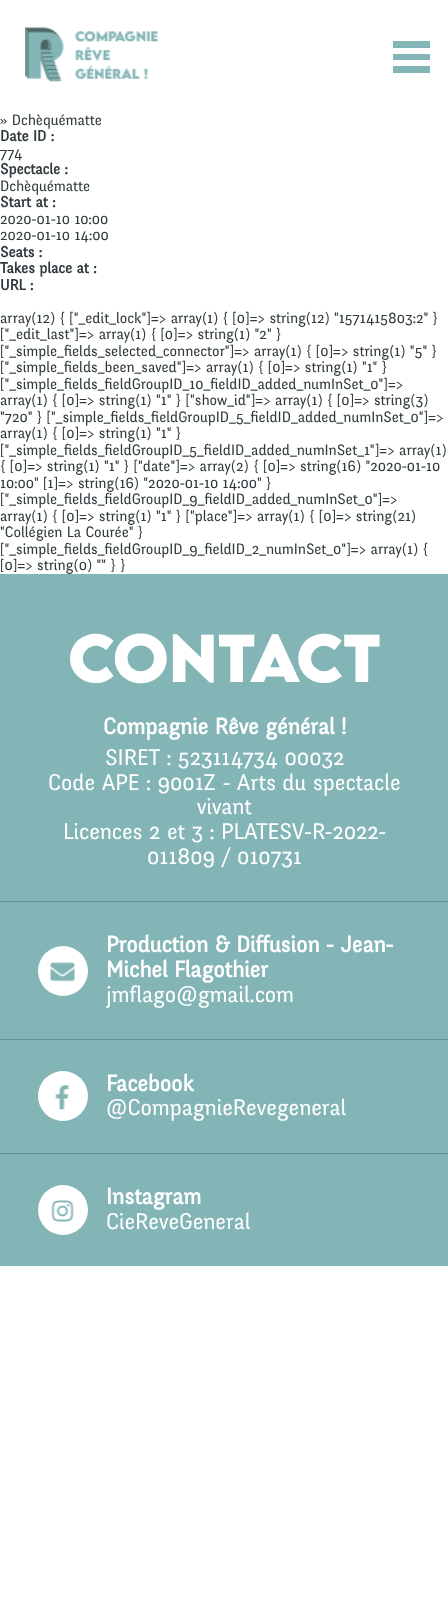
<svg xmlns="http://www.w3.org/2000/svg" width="448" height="1603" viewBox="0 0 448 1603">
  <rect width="100%" height="100%" fill="rgb(255,255,255)"/>
  <image x="25" y="27" width="133" height="55" href="pic1.png"/>
  <rect x="393" y="41" width="37" height="7" fill="rgb(132,181,182)"/>
  <rect x="393" y="54" width="37" height="6" fill="rgb(132,181,182)"/>
  <rect x="393" y="66" width="37" height="7" fill="rgb(132,181,182)"/>
  <text x="0" y="125" font-family="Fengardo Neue" font-size="15" fill="rgb(46,58,60)">» Dchèquématte</text>
  <text x="0" y="141" font-family="Fengardo Neue" font-size="15" font-weight="bold" fill="rgb(46,58,60)">Date ID :</text>
  <text x="0" y="158" font-family="Fengardo Neue" font-size="15" fill="rgb(46,58,60)">774</text>
  <text x="0" y="174" font-family="Fengardo Neue" font-size="15" font-weight="bold" fill="rgb(46,58,60)">Spectacle :</text>
  <text x="0" y="191" font-family="Fengardo Neue" font-size="15" fill="rgb(46,58,60)">Dchèquématte</text>
  <text x="0" y="207" font-family="Fengardo Neue" font-size="15" font-weight="bold" fill="rgb(46,58,60)">Start at :</text>
  <g font-family="Fengardo Neue" font-size="15" fill="rgb(46,58,60)">
    <text>
      <tspan x="0" y="224">2020-01-10 10:00</tspan>
      <tspan x="0" y="240">2020-01-10 14:00</tspan>
    </text>
  </g>
  <g font-family="Fengardo Neue" font-size="15" font-weight="bold" fill="rgb(46,58,60)">
    <text>
      <tspan x="0" y="257">Seats :</tspan>
      <tspan x="0" y="273">Takes place at :</tspan>
      <tspan x="0" y="290">URL :</tspan>
    </text>
  </g>
  <g font-family="Fengardo Neue" font-size="15" fill="rgb(46,58,60)">
    <text>
      <tspan x="0" y="323">array(12) { ["_edit_lock"]=&gt; array(1) { [0]=&gt; string(12) "1571415803:2" }</tspan>
      <tspan x="0" y="339">["_edit_last"]=&gt; array(1) { [0]=&gt; string(1) "2" }</tspan>
      <tspan x="0" y="356">["_simple_fields_selected_connector"]=&gt; array(1) { [0]=&gt; string(1) "5" }</tspan>
      <tspan x="0" y="372">["_simple_fields_been_saved"]=&gt; array(1) { [0]=&gt; string(1) "1" }</tspan>
      <tspan x="0" y="389">["_simple_fields_fieldGroupID_10_fieldID_added_numInSet_0"]=&gt;</tspan>
      <tspan x="0" y="405">array(1) { [0]=&gt; string(1) "1" } ["show_id"]=&gt; array(1) { [0]=&gt; string(3)</tspan>
      <tspan x="0" y="422">"720" } ["_simple_fields_fieldGroupID_5_fieldID_added_numInSet_0"]=&gt;</tspan>
      <tspan x="0" y="438">array(1) { [0]=&gt; string(1) "1" }</tspan>
      <tspan x="0" y="455">["_simple_fields_fieldGroupID_5_fieldID_added_numInSet_1"]=&gt; array(1)</tspan>
      <tspan x="0" y="471">{ [0]=&gt; string(1) "1" } ["date"]=&gt; array(2) { [0]=&gt; string(16) "2020-01-10</tspan>
      <tspan x="0" y="488">10:00" [1]=&gt; string(16) "2020-01-10 14:00" }</tspan>
      <tspan x="0" y="504">["_simple_fields_fieldGroupID_9_fieldID_added_numInSet_0"]=&gt;</tspan>
      <tspan x="0" y="521">array(1) { [0]=&gt; string(1) "1" } ["place"]=&gt; array(1) { [0]=&gt; string(21)</tspan>
      <tspan x="0" y="537">"Collégien La Courée" }</tspan>
      <tspan x="0" y="554">["_simple_fields_fieldGroupID_9_fieldID_2_numInSet_0"]=&gt; array(1) {</tspan>
      <tspan x="0" y="570">[0]=&gt; string(0) "" } }</tspan>
    </text>
  </g>
  <rect x="0" y="574" width="448" height="692" fill="rgb(132,181,182)"/>
  <text x="68" y="682" font-family="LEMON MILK" font-size="60" font-weight="bold" fill="rgb(255,255,255)">Contact</text>
  <text x="103" y="734" font-family="Fengardo Neue" font-size="22.5" font-weight="bold" fill="rgb(255,255,255)">Compagnie Rêve général !</text>
  <g font-family="Fengardo Neue" font-size="22.5" fill="rgb(255,255,255)">
    <text x="105" y="765">SIRET : 523114734 00032</text>
    <text x="48" y="790">Code APE : 9001Z - Arts du spectacle</text>
    <text x="197" y="814">vivant</text>
    <text x="63" y="839">Licences 2 et 3 : PLATESV-R-2022-</text>
    <text x="147" y="864">011809 / 010731</text>
  </g>
  <rect x="0" y="901" width="448" height="1" fill="rgb(106,145,146)"/>
  <circle cx="63" cy="971" r="25" fill="rgb(255,255,255)"/>
  <image x="50" y="962" width="25" height="20" href="pic2.png"/>
  <g font-family="Fengardo Neue" font-size="22.5" font-weight="bold" fill="rgb(255,255,255)">
    <text>
      <tspan x="106" y="952">Production &amp; Diffusion - Jean-</tspan>
      <tspan x="106" y="977">Michel Flagothier</tspan>
    </text>
  </g>
  <text x="106" y="1002" font-family="Fengardo Neue" font-size="22.5" fill="rgb(255,255,255)">jmflago@gmail.com</text>
  <rect x="0" y="1039" width="448" height="1" fill="rgb(106,145,146)"/>
  <circle cx="63" cy="1096" r="25" fill="rgb(255,255,255)"/>
  <image x="55" y="1085" width="14" height="25" href="pic3.png"/>
  <text x="106" y="1091" font-family="Fengardo Neue" font-size="22.5" font-weight="bold" fill="rgb(255,255,255)">Facebook</text>
  <text x="106" y="1115" font-family="Fengardo Neue" font-size="22.5" fill="rgb(255,255,255)">@CompagnieRevegeneral</text>
  <rect x="0" y="1153" width="448" height="1" fill="rgb(106,145,146)"/>
  <circle cx="63" cy="1210" r="25" fill="rgb(255,255,255)"/>
  <image x="51" y="1200" width="23" height="22" href="pic4.png"/>
  <text x="106" y="1204" font-family="Fengardo Neue" font-size="22.5" font-weight="bold" fill="rgb(255,255,255)">Instagram</text>
  <text x="106" y="1229" font-family="Fengardo Neue" font-size="22.5" fill="rgb(255,255,255)">CieReveGeneral</text>
</svg>
